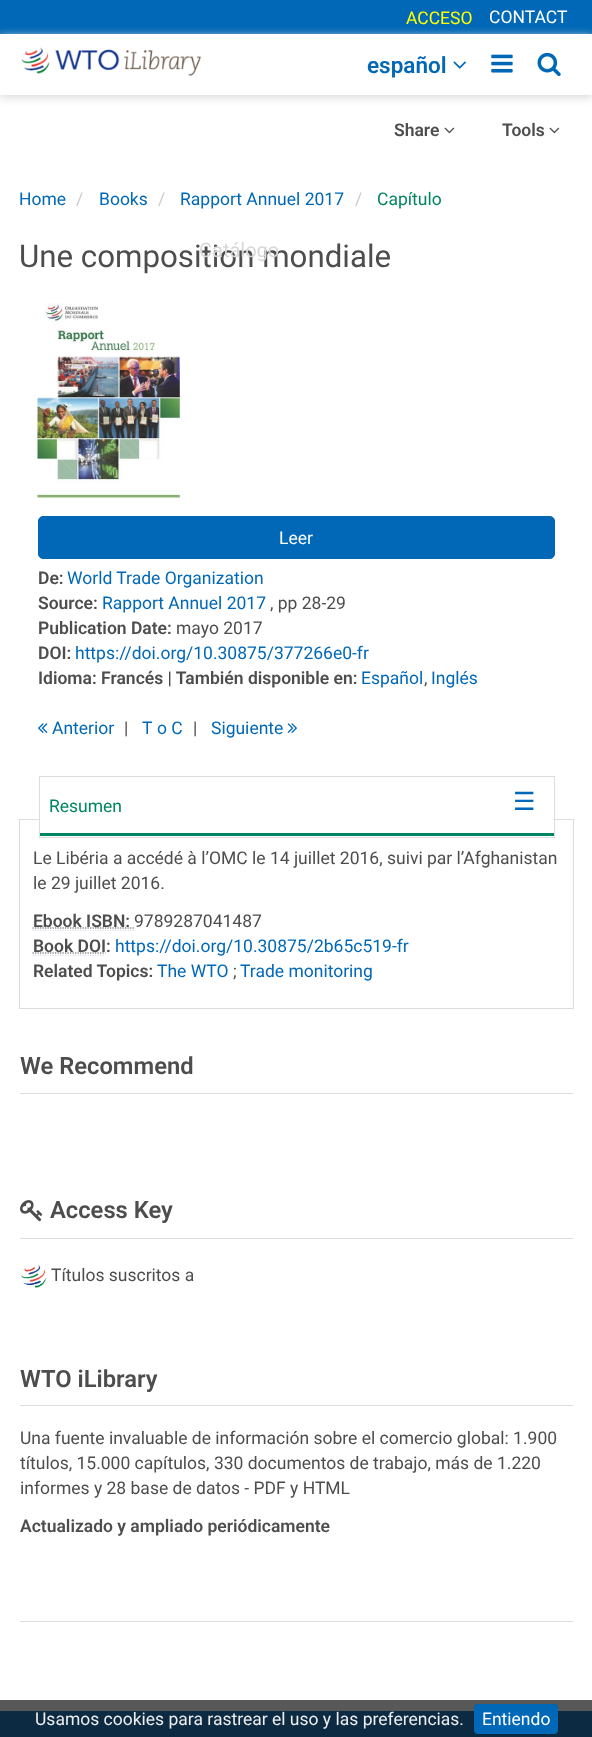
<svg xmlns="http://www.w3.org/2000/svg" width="592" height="1737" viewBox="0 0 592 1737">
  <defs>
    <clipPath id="clip1"><path d="M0 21H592V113H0ZM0 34H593V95H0Z" clip-rule="evenodd"/></clipPath>
  </defs>
  <rect width="100%" height="100%" fill="rgb(255,255,255)"/>
  <rect x="0" y="1700" width="592" height="11" fill="rgb(88,88,88)"/>
  <rect x="0" y="0" width="592" height="34" fill="rgb(0,104,182)"/>
  <g clip-path="url(#clip1)">
    <rect x="0" y="36" width="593" height="62" fill="rgb(221,221,221)" filter="blur(4.5px)"/>
  </g>
  <text x="406" y="24" font-family="Roboto" font-size="17.5" fill="rgb(255,255,0)">ACCESO</text>
  <text x="489" y="23" font-family="Roboto" font-size="17.5" fill="rgb(255,255,255)">CONTACT</text>
  <image x="21" y="47" width="181" height="29" href="pic1.png"/>
  <text x="367" y="73" font-family="Roboto" font-size="22.5" font-weight="600" fill="rgb(0,104,182)">español</text>
  <image x="453" y="61" width="13" height="8" href="pic2.png"/>
  <image x="491" y="54" width="22" height="19" href="pic3.png"/>
  <image x="537" y="52" width="24" height="24" href="pic4.png"/>
  <text x="19" y="267" font-family="Roboto" font-size="31.25" fill="rgb(77,77,77)">Une composition mondiale</text>
  <text x="199" y="257" font-family="Roboto" font-size="20" fill="rgb(216,216,216)">Catálogo</text>
  <text x="394" y="136" font-family="Roboto" font-size="17.5" font-weight="600" fill="rgb(77,77,77)">Share</text>
  <image x="444" y="127" width="11" height="7" href="pic5.png"/>
  <text x="502" y="136" font-family="Roboto" font-size="17.5" font-weight="600" fill="rgb(77,77,77)">Tools</text>
  <image x="549" y="127" width="11" height="7" href="pic5.png"/>
  <text x="19" y="205" font-family="Roboto" font-size="17.5" fill="rgb(0,104,182)">Home</text>
  <text x="76" y="205" font-family="Roboto" font-size="17.5" fill="rgb(204,204,204)">/</text>
  <text x="99" y="205" font-family="Roboto" font-size="17.5" fill="rgb(0,104,182)">Books</text>
  <text x="158" y="205" font-family="Roboto" font-size="17.5" fill="rgb(204,204,204)">/</text>
  <text x="180" y="205" font-family="Roboto" font-size="17.5" fill="rgb(0,104,182)">Rapport Annuel 2017</text>
  <text x="355" y="205" font-family="Roboto" font-size="17.5" fill="rgb(204,204,204)">/</text>
  <text x="377" y="205" font-family="Roboto" font-size="17.5" fill="rgb(0,132,97)">Capítulo</text>
  <image x="37" y="303" width="143" height="195" href="pic6.png"/>
  <rect x="38.5" y="516.5" width="516" height="42" rx="4.5" fill="rgb(0,104,182)" stroke="rgb(0,104,182)"/>
  <text x="279" y="544" font-family="Roboto" font-size="17.5" fill="rgb(255,255,255)">Leer</text>
  <text x="38" y="584" font-family="Roboto" font-size="17.5" font-weight="600" fill="rgb(77,77,77)">De:</text>
  <text x="67" y="584" font-family="Roboto" font-size="17.5" fill="rgb(0,104,182)">World Trade Organization</text>
  <text x="38" y="609" font-family="Roboto" font-size="17.5" font-weight="600" fill="rgb(77,77,77)">Source:</text>
  <text x="102" y="609" font-family="Roboto" font-size="17.5" fill="rgb(0,104,182)">Rapport Annuel 2017</text>
  <text x="270" y="609" font-family="Roboto" font-size="17.5" fill="rgb(77,77,77)">, pp 28-29</text>
  <text x="38" y="634" font-family="Roboto" font-size="17.5" font-weight="600" fill="rgb(77,77,77)">Publication Date:</text>
  <text x="176" y="634" font-family="Roboto" font-size="17.5" fill="rgb(77,77,77)">mayo 2017</text>
  <text x="38" y="659" font-family="Roboto" font-size="17.5" font-weight="600" fill="rgb(77,77,77)">DOI:</text>
  <text x="75" y="659" font-family="Roboto" font-size="17.5" fill="rgb(0,104,182)">https://doi.org/10.30875/377266e0-fr</text>
  <text x="38" y="684" font-family="Roboto" font-size="17.5" font-weight="600" fill="rgb(77,77,77)">Idioma: Francés | También disponible en:</text>
  <text x="361" y="684" font-family="Roboto" font-size="17.5" fill="rgb(0,104,182)">Español</text>
  <text x="424" y="684" font-family="Roboto" font-size="17.5" fill="rgb(77,77,77)">,</text>
  <text x="431" y="684" font-family="Roboto" font-size="17.5" fill="rgb(0,104,182)">Inglés</text>
  <image x="38" y="723" width="10" height="10" href="pic7.png"/>
  <text x="52" y="734" font-family="Roboto" font-size="17.5" fill="rgb(0,104,182)">Anterior</text>
  <text x="124" y="734" font-family="Roboto" font-size="17.5" fill="rgb(77,77,77)">|</text>
  <g font-family="Roboto" font-size="17.5" fill="rgb(0,104,182)">
    <text x="142" y="734">T</text>
    <text x="157" y="734">o C</text>
  </g>
  <text x="193" y="734" font-family="Roboto" font-size="17.5" fill="rgb(77,77,77)">|</text>
  <text x="211" y="734" font-family="Roboto" font-size="17.5" fill="rgb(0,104,182)">Siguiente</text>
  <image x="287" y="723" width="10" height="10" href="pic8.png"/>
  <rect x="19.5" y="819.5" width="554" height="189" fill="none" stroke="rgb(221,221,221)"/>
  <rect x="40" y="819" width="514" height="1" fill="rgb(255,255,255)"/>
  <rect x="39.5" y="776.5" width="515" height="61" fill="none" stroke="rgb(221,221,221)"/>
  <rect x="40" y="833" width="514" height="3" fill="rgb(0,132,97)"/>
  <text x="49" y="812" font-family="Roboto" font-size="17.5" fill="rgb(0,132,97)">Resumen</text>
  <text x="513" y="810" font-family="DejaVu Sans" font-size="25" fill="rgb(0,104,182)">☰</text>
  <g font-family="Roboto" font-size="17.5" fill="rgb(77,77,77)">
    <text>
      <tspan x="33" y="864">Le Libéria a accédé à l’OMC le 14 juillet 2016, suivi par l’Afghanistan</tspan>
      <tspan x="33" y="889">le 29 juillet 2016.</tspan>
    </text>
  </g>
  <path d="M32.5 928H134" fill="none" stroke="rgb(77,77,77)" stroke-width="1.2" stroke-dasharray="1.25 1.25"/>
  <text x="33" y="927" font-family="Roboto" font-size="17.5" font-weight="600" fill="rgb(77,77,77)">Ebook ISBN:</text>
  <path d="M32.5 930.5H134" fill="none" stroke="rgb(213,223,236)" stroke-width="1.2" stroke-dasharray="1.25 1.25"/>
  <text x="134" y="927" font-family="Roboto" font-size="17.5" fill="rgb(77,77,77)">9789287041487</text>
  <path d="M32.5 953H105.5" fill="none" stroke="rgb(77,77,77)" stroke-width="1.2" stroke-dasharray="1.25 1.25"/>
  <text x="33" y="952" font-family="Roboto" font-size="17.5" font-weight="600" fill="rgb(77,77,77)">Book DOI:</text>
  <path d="M32.5 955.5H105" fill="none" stroke="rgb(213,223,236)" stroke-width="1.2" stroke-dasharray="1.25 1.25"/>
  <text x="115" y="952" font-family="Roboto" font-size="17.5" fill="rgb(0,104,182)">https://doi.org/10.30875/2b65c519-fr</text>
  <text x="33" y="977" font-family="Roboto" font-size="17.5" font-weight="600" fill="rgb(77,77,77)">Related Topics:</text>
  <text x="157" y="977" font-family="Roboto" font-size="17.5" fill="rgb(0,104,182)">The WTO</text>
  <text x="233" y="977" font-family="Roboto" font-size="17.5" fill="rgb(77,77,77)">;</text>
  <text x="240" y="977" font-family="Roboto" font-size="17.5" fill="rgb(0,104,182)">Trade monitoring</text>
  <rect x="20" y="1093" width="553" height="1" fill="rgb(221,221,221)"/>
  <text x="20" y="1074" font-family="Roboto" font-size="23.75" font-weight="600" fill="rgb(77,77,77)">We Recommend</text>
  <rect x="20" y="1238" width="553" height="1" fill="rgb(221,221,221)"/>
  <image x="20" y="1200" width="23" height="22" href="pic9.png"/>
  <text x="50" y="1218" font-family="Roboto" font-size="23.75" font-weight="600" fill="rgb(77,77,77)">Access Key</text>
  <image x="21" y="1265" width="26" height="23" href="pic10.png"/>
  <text x="51" y="1281" font-family="Roboto" font-size="17.5" fill="rgb(77,77,77)">Títulos suscritos a</text>
  <rect x="20" y="1405" width="553" height="1" fill="rgb(221,221,221)"/>
  <text x="20" y="1387" font-family="Roboto" font-size="23.75" font-weight="600" fill="rgb(77,77,77)">WTO iLibrary</text>
  <g font-family="Roboto" font-size="17.5" fill="rgb(77,77,77)">
    <text>
      <tspan x="20" y="1444">Una fuente invaluable de información sobre el comercio global: 1.900</tspan>
      <tspan x="20" y="1469">títulos, 15.000 capítulos, 330 documentos de trabajo, más de 1.220</tspan>
      <tspan x="20" y="1494">informes y 28 base de datos - PDF y HTML</tspan>
    </text>
  </g>
  <text x="20" y="1532" font-family="Roboto" font-size="17.5" font-weight="600" fill="rgb(77,77,77)">Actualizado y ampliado periódicamente</text>
  <rect x="20" y="1621" width="553" height="1" fill="rgb(221,221,221)"/>
  <rect x="0" y="1711" width="592" height="26" fill="rgb(12,43,67)"/>
  <text x="35" y="1725" font-family="Roboto" font-size="17.5" fill="rgb(238,238,238)">Usamos cookies para rastrear el uso y las preferencias.</text>
  <rect x="474" y="1704" width="84" height="30" rx="4" fill="rgb(0,104,182)"/>
  <text x="482" y="1725" font-family="Roboto" font-size="17.5" fill="rgb(255,255,255)">Entiendo</text>
</svg>
